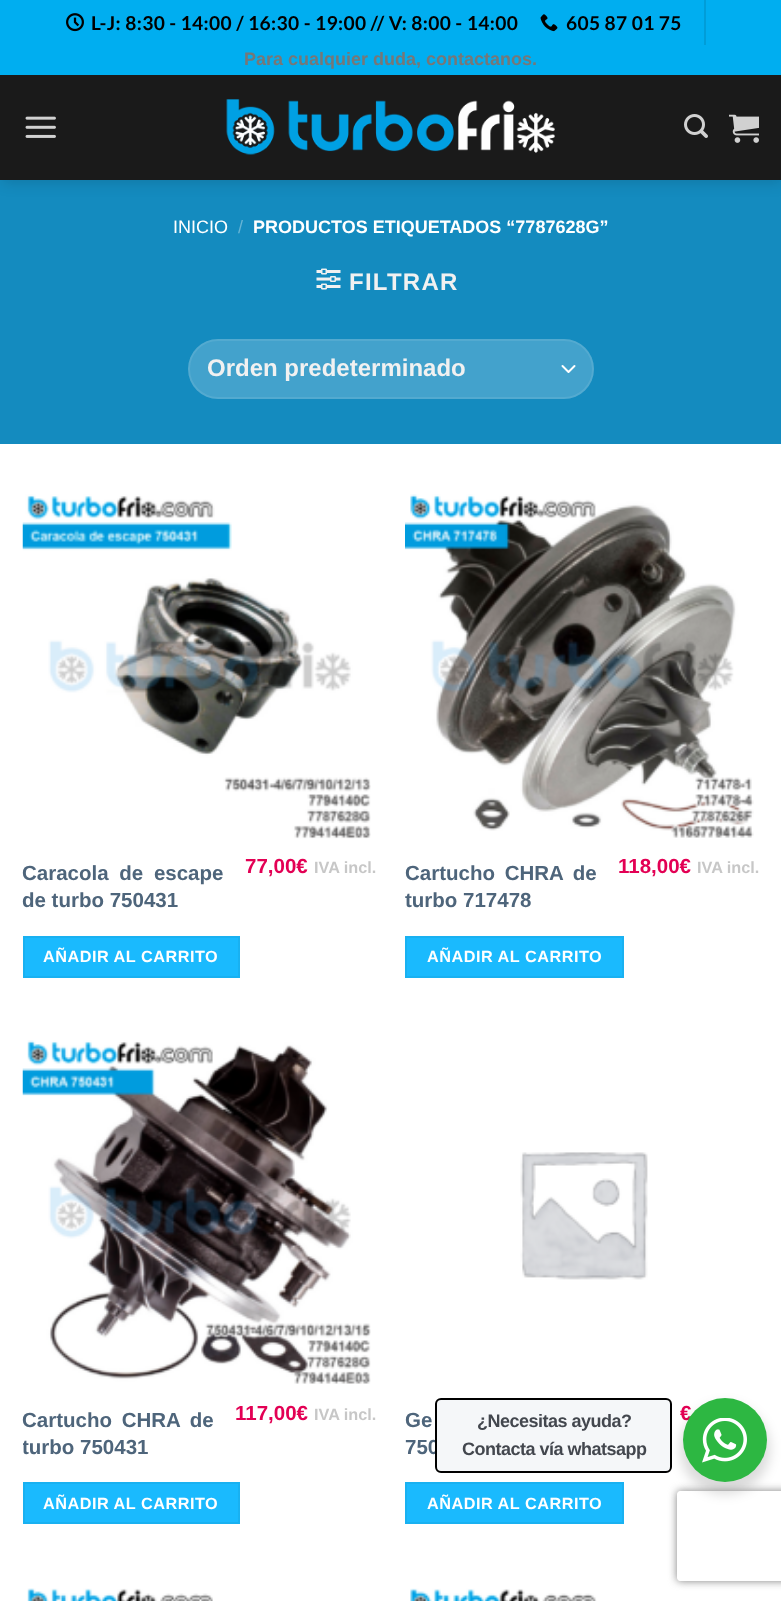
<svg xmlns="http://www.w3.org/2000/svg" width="781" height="1601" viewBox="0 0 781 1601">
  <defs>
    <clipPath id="clip1"><rect x="23" y="1404" width="213" height="62"/></clipPath>
    <clipPath id="clip2"><path d="M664 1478H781V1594H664ZM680 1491H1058C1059.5 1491 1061 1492.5 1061 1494V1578C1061 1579.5 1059.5 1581 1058 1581H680C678.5 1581 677 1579.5 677 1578V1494C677 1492.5 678.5 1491 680 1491Z" clip-rule="evenodd"/></clipPath>
  </defs>
  <rect width="100%" height="100%" fill="rgb(255,255,255)"/>
  <rect x="0" y="180" width="781" height="264" fill="rgb(20,139,191)"/>
  <rect x="2" y="2" width="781" height="180" fill="rgba(0,0,0,0.15)" filter="blur(7.5px)"/>
  <rect x="0" y="0" width="781" height="75" fill="rgb(0,174,240)"/>
  <image x="66" y="13" width="18" height="19" href="pic1.png"/>
  <text x="91" y="30" font-family="Lato" font-size="19.2" font-weight="bold" letter-spacing="0.38" fill="rgb(0,0,0)">L-J: 8:30 - 14:00 / 16:30 - 19:00 // V: 8:00 - 14:00</text>
  <image x="540" y="14" width="18" height="18" href="pic2.png"/>
  <text x="566" y="30" font-family="Lato" font-size="19.2" font-weight="bold" letter-spacing="0.38" fill="rgb(0,0,0)">605 87 01 75</text>
  <rect x="704" y="0" width="2" height="45" fill="rgb(0,157,216)"/>
  <text x="244" y="65" font-family="Liberation Sans" font-size="18" font-weight="bold" fill="rgb(119,119,119)">Para cualquier duda, contactanos.</text>
  <rect x="0" y="75" width="781" height="105" fill="rgb(26,26,26)"/>
  <image x="25" y="116" width="31" height="22" href="pic3.png"/>
  <image x="226" y="99" width="329" height="56" href="pic4.png"/>
  <image x="684" y="114" width="24" height="24" href="pic5.png"/>
  <image x="729" y="114" width="30" height="29" href="pic6.png"/>
  <text x="173" y="233" font-family="Liberation Sans" font-size="18" fill="rgb(255,255,255)">INICIO</text>
  <text x="238" y="233" font-family="Liberation Sans" font-size="18" fill="rgb(102,180,213)">/</text>
  <text x="253" y="233" font-family="Liberation Sans" font-size="18" font-weight="bold" fill="rgb(255,255,255)">PRODUCTOS ETIQUETADOS “7787628G”</text>
  <image x="316" y="268" width="25" height="22" href="pic7.png"/>
  <text x="349" y="290" font-family="Liberation Sans" font-size="24" font-weight="bold" letter-spacing="1.25" fill="rgb(241,241,241)">FILTRAR</text>
  <rect x="188" y="339" width="406" height="60" rx="30" fill="rgb(67,162,204)"/>
  <path d="M562.5 366L568.5 372L574.5 366" fill="none" stroke="rgb(255,255,255)" stroke-width="2" stroke-linecap="round" stroke-linejoin="round"/>
  <rect x="189" y="340" width="404" height="58" rx="29" fill="none" stroke="rgba(255,255,255,0.09)" stroke-width="2"/>
  <text x="207" y="376" font-family="Liberation Sans" font-size="24" font-weight="bold" fill="rgb(241,241,241)">Orden predeterminado</text>
  <image x="22" y="494" width="349" height="345" href="pic8.png"/>
  <g font-family="Liberation Sans" font-size="20.5" font-weight="bold" fill="rgb(78,101,123)">
    <text>
      <tspan x="22" y="880" word-spacing="5">Caracola de escape</tspan>
      <tspan x="22" y="907">de turbo 750431</tspan>
    </text>
  </g>
  <text x="245" y="873" font-family="Liberation Sans" font-size="20.5" font-weight="bold" fill="rgb(227,0,84)">77,00€</text>
  <text x="314" y="873" font-family="Liberation Sans" font-size="16.25" font-weight="bold" fill="rgb(199,199,199)">IVA incl.</text>
  <rect x="24" y="937" width="215" height="40" fill="rgb(26,186,254)" stroke="rgb(25,177,241)" stroke-width="2"/>
  <text x="43" y="962" font-family="Liberation Sans" font-size="16.25" font-weight="bold" letter-spacing="0.5" fill="rgb(255,255,255)">AÑADIR AL CARRITO</text>
  <image x="405" y="494" width="349" height="344" href="pic9.png"/>
  <g font-family="Liberation Sans" font-size="20.5" font-weight="bold" fill="rgb(78,101,123)">
    <text>
      <tspan x="405" y="880" word-spacing="4">Cartucho CHRA de</tspan>
      <tspan x="405" y="907">turbo 717478</tspan>
    </text>
  </g>
  <text x="618" y="873" font-family="Liberation Sans" font-size="20.5" font-weight="bold" fill="rgb(227,0,84)">118,00€</text>
  <text x="697" y="873" font-family="Liberation Sans" font-size="16.25" font-weight="bold" fill="rgb(199,199,199)">IVA incl.</text>
  <rect x="406" y="937" width="217" height="40" fill="rgb(26,186,254)" stroke="rgb(25,177,241)" stroke-width="2"/>
  <text x="427" y="962" font-family="Liberation Sans" font-size="16.25" font-weight="bold" letter-spacing="0.5" fill="rgb(255,255,255)">AÑADIR AL CARRITO</text>
  <image x="22" y="1040" width="349" height="344" href="pic10.png"/>
  <text x="22" y="1427" word-spacing="4" font-family="Liberation Sans" font-size="20.5" font-weight="bold" fill="rgb(78,101,123)">Cartucho CHRA de</text>
  <g clip-path="url(#clip1)">
    <text x="22" y="1454" font-family="Liberation Sans" font-size="20.5" font-weight="bold" fill="rgb(78,101,123)">turbo 750431</text>
  </g>
  <text x="235" y="1420" font-family="Liberation Sans" font-size="20.5" font-weight="bold" fill="rgb(227,0,84)">117,00€</text>
  <text x="314" y="1420" font-family="Liberation Sans" font-size="16.25" font-weight="bold" fill="rgb(199,199,199)">IVA incl.</text>
  <rect x="24" y="1483" width="215" height="40" fill="rgb(26,186,254)" stroke="rgb(25,177,241)" stroke-width="2"/>
  <text x="43" y="1509" font-family="Liberation Sans" font-size="16.25" font-weight="bold" letter-spacing="0.5" fill="rgb(255,255,255)">AÑADIR AL CARRITO</text>
  <image x="520" y="1152" width="128" height="128" href="pic11.png"/>
  <g font-family="Liberation Sans" font-size="20.5" font-weight="bold" fill="rgb(78,101,123)">
    <text>
      <tspan x="405" y="1427" word-spacing="17">Ge</tspan>
      <tspan x="405" y="1454">750</tspan>
    </text>
  </g>
  <text x="680" y="1420" font-family="Liberation Sans" font-size="20.5" font-weight="bold" fill="rgb(227,0,84)">€</text>
  <rect x="406" y="1483" width="217" height="40" fill="rgb(26,186,254)" stroke="rgb(25,177,241)" stroke-width="2"/>
  <text x="427" y="1509" font-family="Liberation Sans" font-size="16.25" font-weight="bold" letter-spacing="0.5" fill="rgb(255,255,255)">AÑADIR AL CARRITO</text>
  <image x="27" y="1588" width="186" height="13" href="pic12.png"/>
  <image x="410" y="1588" width="187" height="13" href="pic13.png"/>
  <rect x="680" y="1404" width="90" height="90" rx="45" fill="rgba(0,0,0,0.14)" filter="blur(6px)"/>
  <rect x="436" y="1399" width="235" height="73" rx="5" fill="rgb(245,247,249)" stroke="rgb(0,0,0)" stroke-width="2"/>
  <g font-family="Liberation Sans" font-size="18" font-weight="bold" letter-spacing="-0.5" fill="rgb(67,71,78)">
    <text x="477" y="1427">¿Necesitas ayuda?</text>
    <text x="462" y="1455">Contacta vía whatsapp</text>
  </g>
  <g clip-path="url(#clip2)">
    <rect x="677" y="1491" width="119" height="90" rx="3" fill="rgb(128,128,128)" filter="blur(4px)"/>
  </g>
  <circle cx="725" cy="1440" r="42" fill="rgb(45,183,66)"/>
  <image x="702" y="1418" width="45" height="45" href="pic14.png"/>
</svg>
